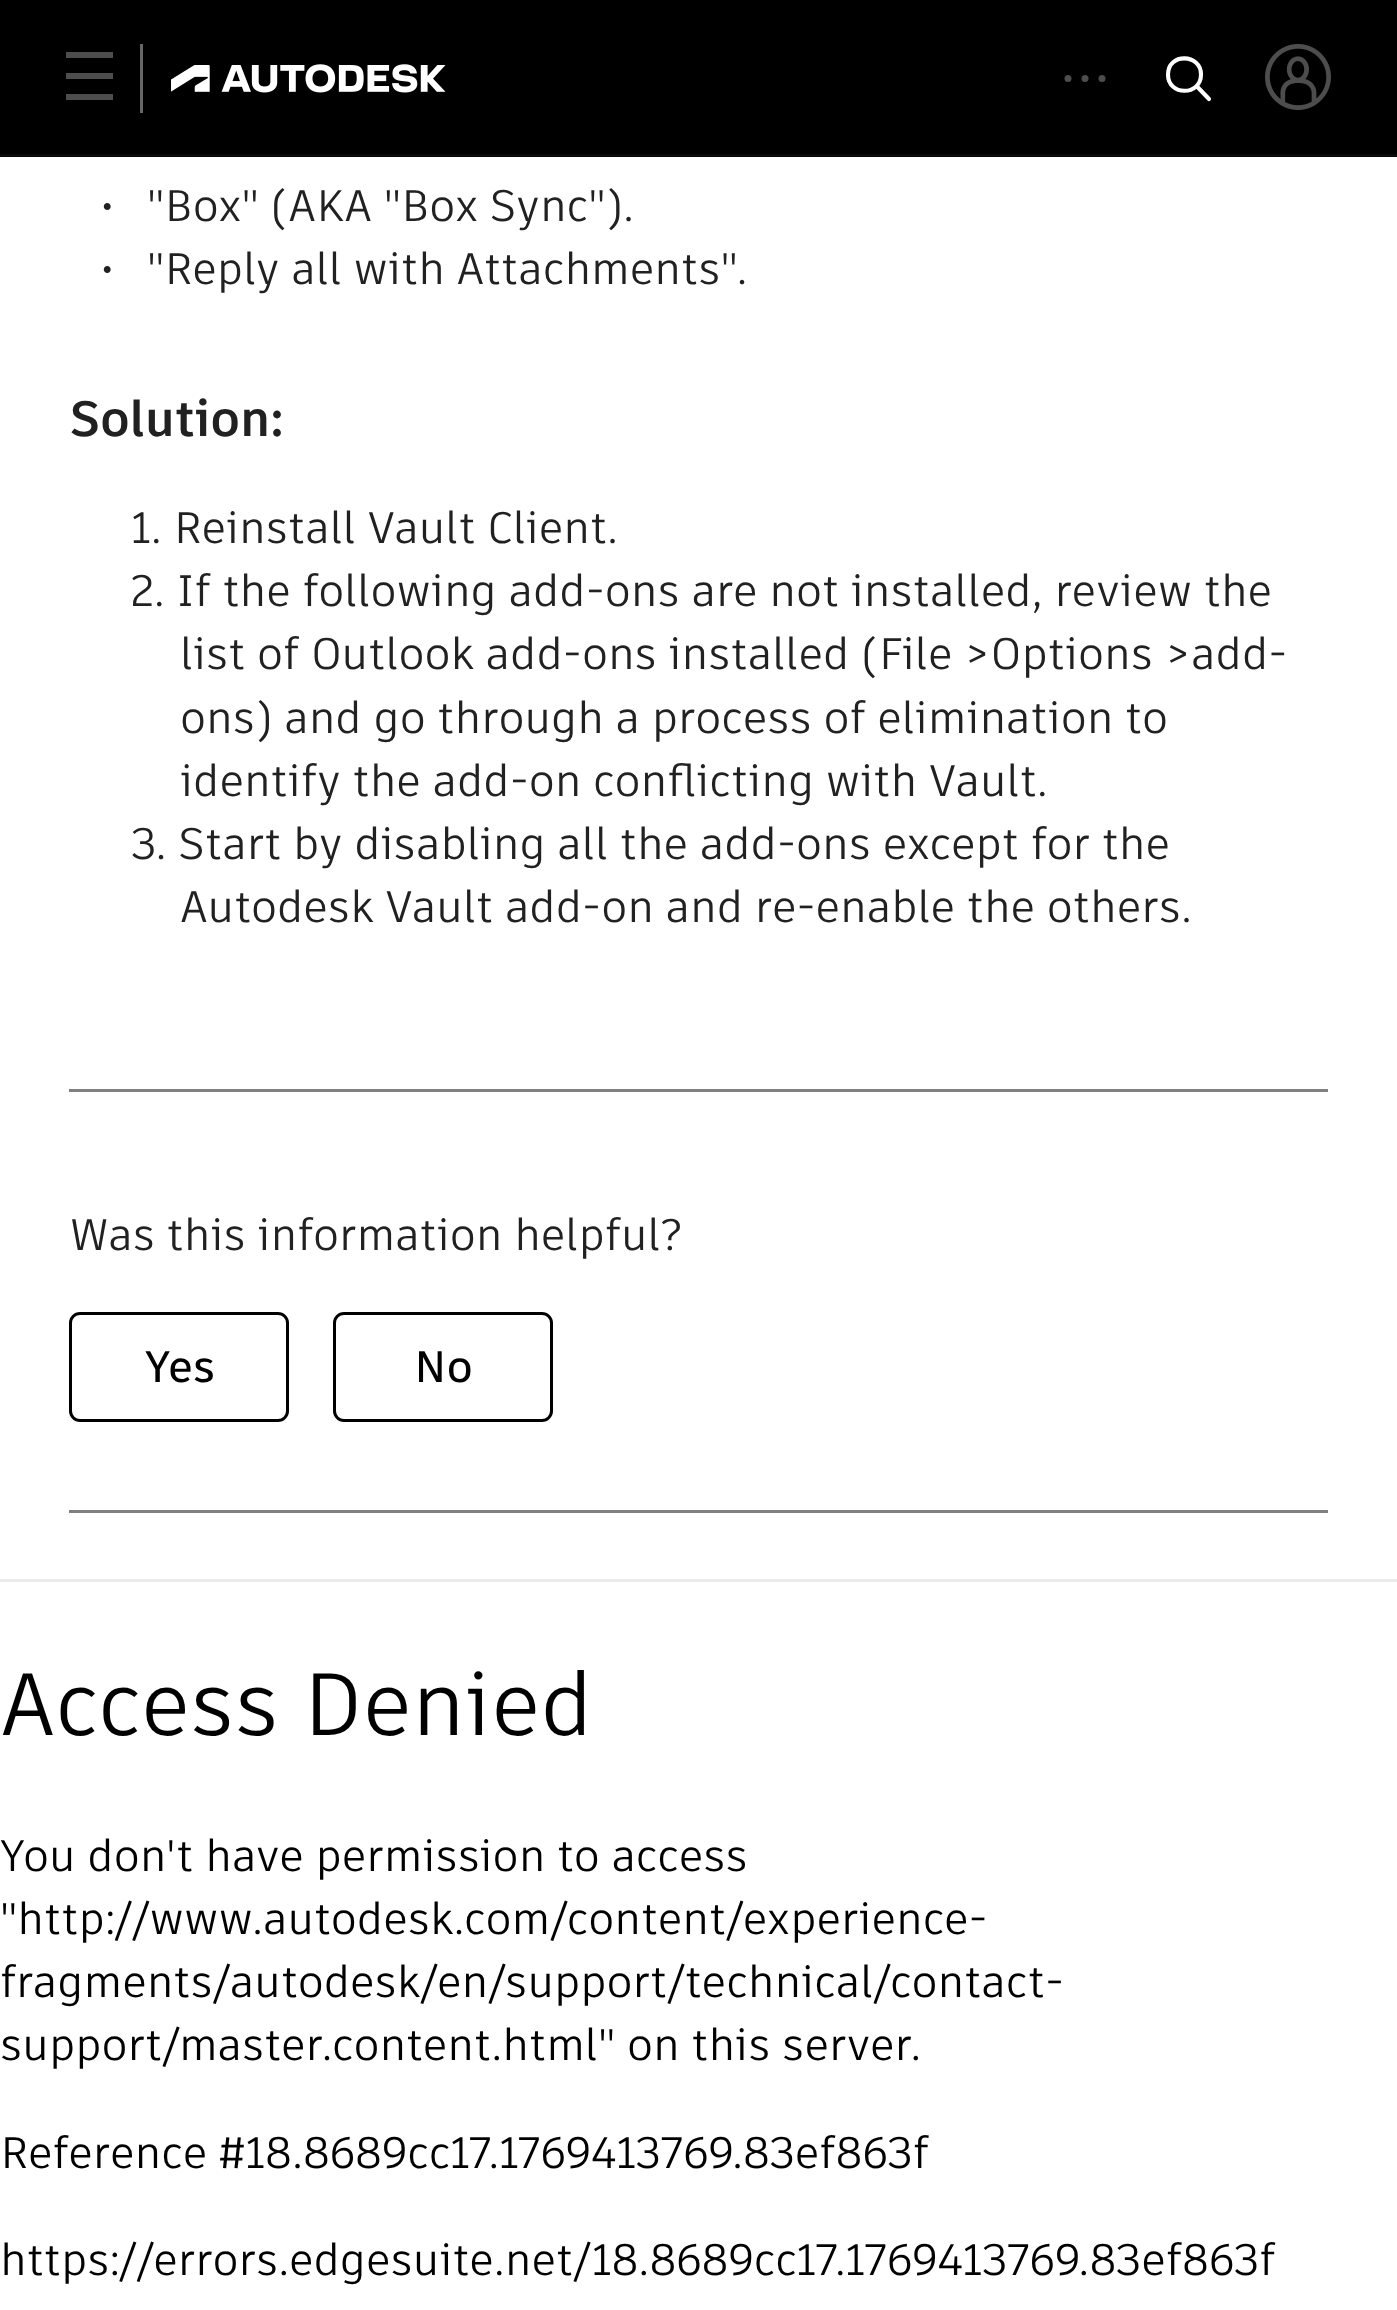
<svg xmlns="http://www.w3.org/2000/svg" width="1397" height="2310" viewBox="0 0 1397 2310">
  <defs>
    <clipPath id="clip1"><rect x="66" y="52" width="47" height="50"/></clipPath>
  </defs>
  <rect width="100%" height="100%" fill="rgb(255,255,255)"/>
  <rect x="0" y="0" width="1397" height="154" fill="rgb(0,0,0)"/>
  <rect x="0" y="154" width="1397" height="3" fill="rgb(10,10,10)"/>
  <g clip-path="url(#clip1)">
    <path d="M66 52H114V58H66ZM66 73H114V79H66ZM66 94H114V100H66Z" fill="rgb(77,77,77)"/>
  </g>
  <rect x="140" y="44" width="3" height="69" fill="rgb(102,102,102)"/>
  <image x="171" y="64" width="275" height="29" href="pic1.png"/>
  <circle cx="1068" cy="78.5" r="3.5" fill="rgb(77,77,77)"/>
  <circle cx="1085" cy="78.5" r="3.5" fill="rgb(77,77,77)"/>
  <circle cx="1102" cy="78.5" r="3.5" fill="rgb(77,77,77)"/>
  <path d="M1196.5 86L1209 99M1201 74.5C1201 96 1168 96.5 1168 74.5C1168 52.5 1201 53.5 1201 74.5Z" fill="none" stroke="rgb(255,255,255)" stroke-width="4.1" stroke-linecap="round"/>
  <image x="1265" y="44" width="66" height="66" href="pic2.png"/>
  <text x="101" y="221" font-family="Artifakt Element" font-size="44" font-weight="bold" fill="rgb(33,33,33)">·</text>
  <text x="147" y="221" font-family="Artifakt Element" font-size="44" fill="rgb(33,33,33)">"Box" (AKA "Box Sync").</text>
  <text x="101" y="284" font-family="Artifakt Element" font-size="44" font-weight="bold" fill="rgb(33,33,33)">·</text>
  <text x="147" y="284" font-family="Artifakt Element" font-size="44" fill="rgb(33,33,33)">"Reply all with Attachments".</text>
  <text x="70" y="436" font-family="Artifakt Element" font-size="49.5" font-weight="bold" fill="rgb(33,33,33)">Solution:</text>
  <g font-family="Artifakt Element" font-size="44" fill="rgb(33,33,33)">
    <text>
      <tspan x="131" y="543">1. Reinstall Vault Client.</tspan>
      <tspan x="131" y="606">2. If the following add-ons are not installed, review the</tspan>
    </text>
    <text>
      <tspan x="180" y="669">list of Outlook add-ons installed (File &gt;Options &gt;add-</tspan>
      <tspan x="180" y="733">ons) and go through a process of elimination to</tspan>
      <tspan x="180" y="796">identify the add-on conflicting with Vault.</tspan>
    </text>
    <text x="131" y="859">3. Start by disabling all the add-ons except for the</text>
    <text x="180" y="922">Autodesk Vault add-on and re-enable the others.</text>
  </g>
  <rect x="69" y="1089" width="1259" height="3" fill="rgb(128,128,128)"/>
  <text x="70" y="1250" font-family="Artifakt Element" font-size="44" fill="rgb(33,33,33)">Was this information helpful?</text>
  <rect x="70.5" y="1313.5" width="217" height="107" rx="9.5" fill="none" stroke="rgb(0,0,0)" stroke-width="3"/>
  <text x="145" y="1382" font-family="Artifakt Element" font-size="44" font-weight="600" fill="rgb(0,0,0)">Yes</text>
  <rect x="334.5" y="1313.5" width="217" height="107" rx="9.5" fill="none" stroke="rgb(0,0,0)" stroke-width="3"/>
  <text x="414" y="1382" font-family="Artifakt Element" font-size="44" font-weight="600" fill="rgb(0,0,0)">No</text>
  <rect x="69" y="1510" width="1259" height="3" fill="rgb(128,128,128)"/>
  <rect x="0" y="1579" width="1397" height="3" fill="rgb(235,235,235)"/>
  <text x="0" y="1735" font-family="Artifakt Element" font-size="88" fill="rgb(0,0,0)">Access Denied</text>
  <g font-family="Artifakt Element" font-size="44" fill="rgb(0,0,0)">
    <text>
      <tspan x="0" y="1871">You don't have permission to access</tspan>
      <tspan x="0" y="1934">"http://www.autodesk.com/content/experience-</tspan>
      <tspan x="0" y="1997">fragments/autodesk/en/support/technical/contact-</tspan>
      <tspan x="0" y="2060">support/master.content.html" on this server.</tspan>
    </text>
    <text x="0" y="2168">Reference #18.8689cc17.1769413769.83ef863f</text>
    <text x="0" y="2275">https://errors.edgesuite.net/18.8689cc17.1769413769.83ef863f</text>
  </g>
</svg>
